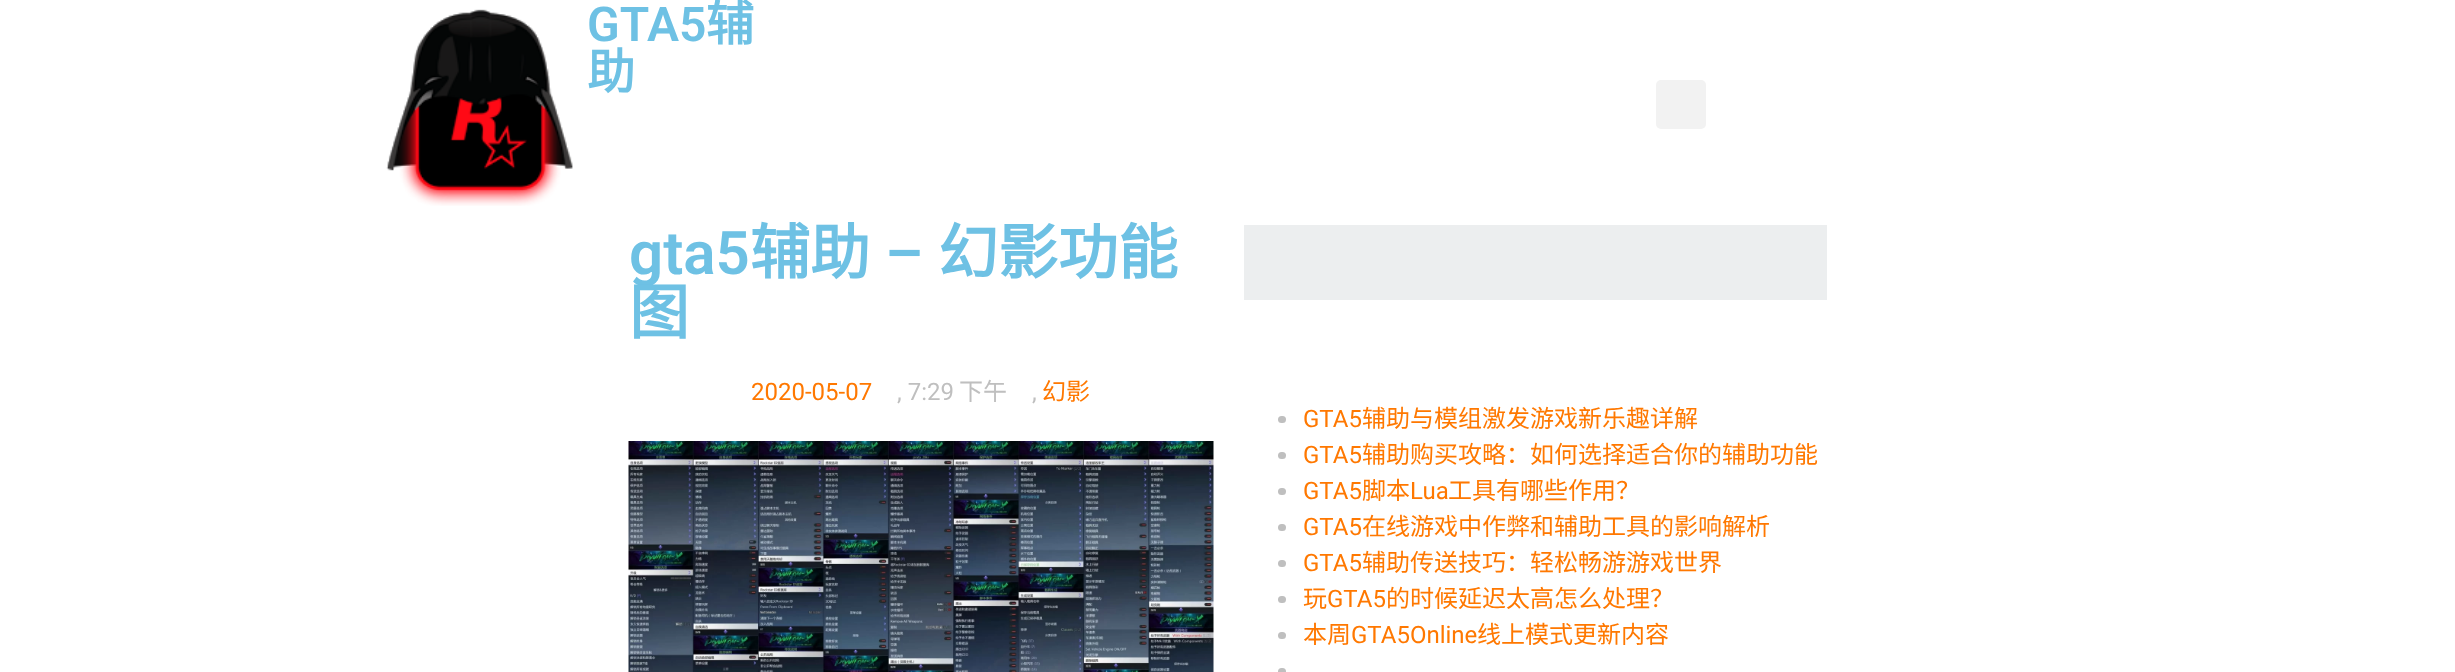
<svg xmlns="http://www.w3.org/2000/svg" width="2455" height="672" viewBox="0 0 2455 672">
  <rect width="100%" height="100%" fill="rgb(255,255,255)"/>
  <image x="386" y="9" width="187" height="197" href="pic1.png"/>
  <text x="587" y="41" font-family="Roboto" font-size="48" font-weight="600" fill="rgb(110,193,228)">GTA5</text>
  <g font-family="Noto Sans CJK SC" font-size="48" font-weight="bold" fill="rgb(110,193,228)">
    <text x="706" y="41">辅</text>
    <text x="587" y="89">助</text>
  </g>
  <rect x="1656" y="80" width="50" height="49" rx="5" fill="rgb(242,242,242)"/>
  <text x="629" y="274" font-family="Roboto" font-size="60" font-weight="600" fill="rgb(110,193,228)">gta5</text>
  <text x="750" y="274" font-family="Noto Sans CJK SC" font-size="60" font-weight="bold" fill="rgb(110,193,228)">辅助</text>
  <text x="885" y="274" font-family="Roboto" font-size="60" font-weight="600" fill="rgb(110,193,228)">–</text>
  <g font-family="Noto Sans CJK SC" font-size="60" font-weight="bold" fill="rgb(110,193,228)">
    <text x="938" y="274">幻影功能</text>
    <text x="629" y="334">图</text>
  </g>
  <text x="751" y="400" font-family="Roboto" font-size="24" fill="rgb(255,120,0)">2020-05-07</text>
  <text x="897" y="400" font-family="Roboto" font-size="24" fill="rgb(191,191,191)">, 7:29</text>
  <text x="959" y="400" font-family="Noto Sans CJK SC" font-size="24" fill="rgb(191,191,191)">下午</text>
  <text x="1032" y="400" font-family="Roboto" font-size="24" fill="rgb(191,191,191)">,</text>
  <text x="1042" y="400" font-family="Noto Sans CJK SC" font-size="24" fill="rgb(255,120,0)">幻影</text>
  <image x="628" y="441" width="586" height="231" href="pic2.png"/>
  <rect x="1244" y="225" width="583" height="75" fill="rgb(236,238,239)"/>
  <rect x="1278" y="416" width="8" height="7" rx="3.5" fill="rgb(191,191,191)"/>
  <text x="1303" y="427" font-family="Roboto" font-size="24" fill="rgb(255,120,0)">GTA5</text>
  <text x="1362" y="427" font-family="Noto Sans CJK SC" font-size="24" fill="rgb(255,120,0)">辅助与模组激发游戏新乐趣详解</text>
  <rect x="1278" y="452" width="8" height="7" rx="3.5" fill="rgb(191,191,191)"/>
  <text x="1303" y="463" font-family="Roboto" font-size="24" fill="rgb(255,120,0)">GTA5</text>
  <text x="1362" y="463" font-family="Noto Sans CJK SC" font-size="24" fill="rgb(255,120,0)">辅助购买攻略：如何选择适合你的辅助功能</text>
  <rect x="1278" y="488" width="8" height="7" rx="3.5" fill="rgb(191,191,191)"/>
  <text x="1303" y="499" font-family="Roboto" font-size="24" fill="rgb(255,120,0)">GTA5</text>
  <text x="1362" y="499" font-family="Noto Sans CJK SC" font-size="24" fill="rgb(255,120,0)">脚本</text>
  <text x="1410" y="499" font-family="Roboto" font-size="24" fill="rgb(255,120,0)">Lua</text>
  <text x="1448" y="499" font-family="Noto Sans CJK SC" font-size="24" fill="rgb(255,120,0)">工具有哪些作用？</text>
  <rect x="1278" y="524" width="8" height="7" rx="3.5" fill="rgb(191,191,191)"/>
  <text x="1303" y="535" font-family="Roboto" font-size="24" fill="rgb(255,120,0)">GTA5</text>
  <text x="1362" y="535" font-family="Noto Sans CJK SC" font-size="24" fill="rgb(255,120,0)">在线游戏中作弊和辅助工具的影响解析</text>
  <rect x="1278" y="560" width="8" height="7" rx="3.5" fill="rgb(191,191,191)"/>
  <text x="1303" y="571" font-family="Roboto" font-size="24" fill="rgb(255,120,0)">GTA5</text>
  <text x="1362" y="571" font-family="Noto Sans CJK SC" font-size="24" fill="rgb(255,120,0)">辅助传送技巧：轻松畅游游戏世界</text>
  <rect x="1278" y="596" width="8" height="7" rx="3.5" fill="rgb(191,191,191)"/>
  <text x="1303" y="607" font-family="Noto Sans CJK SC" font-size="24" fill="rgb(255,120,0)">玩</text>
  <text x="1327" y="607" font-family="Roboto" font-size="24" fill="rgb(255,120,0)">GTA5</text>
  <text x="1386" y="607" font-family="Noto Sans CJK SC" font-size="24" fill="rgb(255,120,0)">的时候延迟太高怎么处理？</text>
  <rect x="1278" y="632" width="8" height="7" rx="3.5" fill="rgb(191,191,191)"/>
  <text x="1303" y="643" font-family="Noto Sans CJK SC" font-size="24" fill="rgb(255,120,0)">本周</text>
  <text x="1351" y="643" font-family="Roboto" font-size="24" fill="rgb(255,120,0)">GTA5Online</text>
  <text x="1477" y="643" font-family="Noto Sans CJK SC" font-size="24" fill="rgb(255,120,0)">线上模式更新内容</text>
  <rect x="1278" y="668" width="8" height="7" rx="3.5" fill="rgb(191,191,191)"/>
</svg>
